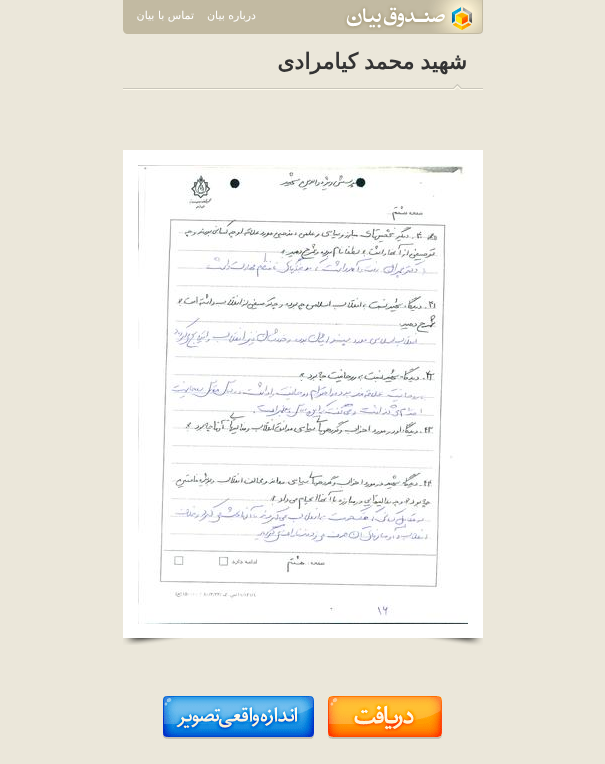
<svg xmlns="http://www.w3.org/2000/svg" width="605" height="764" viewBox="0 0 605 764">
  <rect width="100%" height="100%" fill="rgb(235,231,218)"/>
  <path d="M123 0H483V29C483 32 481 34 478 34H128C125 34 123 32 123 29Z" fill="rgb(194,186,162)"/>
  <image x="344" y="0" width="139" height="34" href="pic1.png"/>
  <g font-family="DejaVu Sans" font-size="11" direction="rtl" fill="rgb(255,255,255)">
    <text x="256" y="19">درباره بیان</text>
    <text x="194" y="19">تماس با بیان</text>
  </g>
  <image x="123" y="84" width="360" height="6" href="pic2.png"/>
  <text x="467" y="69" word-spacing="-1" font-family="DejaVu Sans" font-size="22" font-weight="bold" direction="rtl" fill="rgb(51,51,51)">شهید محمد كیامرادی</text>
  <rect x="123" y="150" width="360" height="488" fill="rgb(255,255,255)"/>
  <image x="123" y="638" width="360" height="8" href="pic3.png"/>
  <image x="123" y="638" width="60" height="7" href="pic4.png"/>
  <image x="138" y="165" width="330" height="459" href="pic5.png"/>
  <image x="328" y="696" width="114" height="43" href="pic6.png"/>
  <image x="163" y="696" width="151" height="43" href="pic7.png"/>
</svg>
